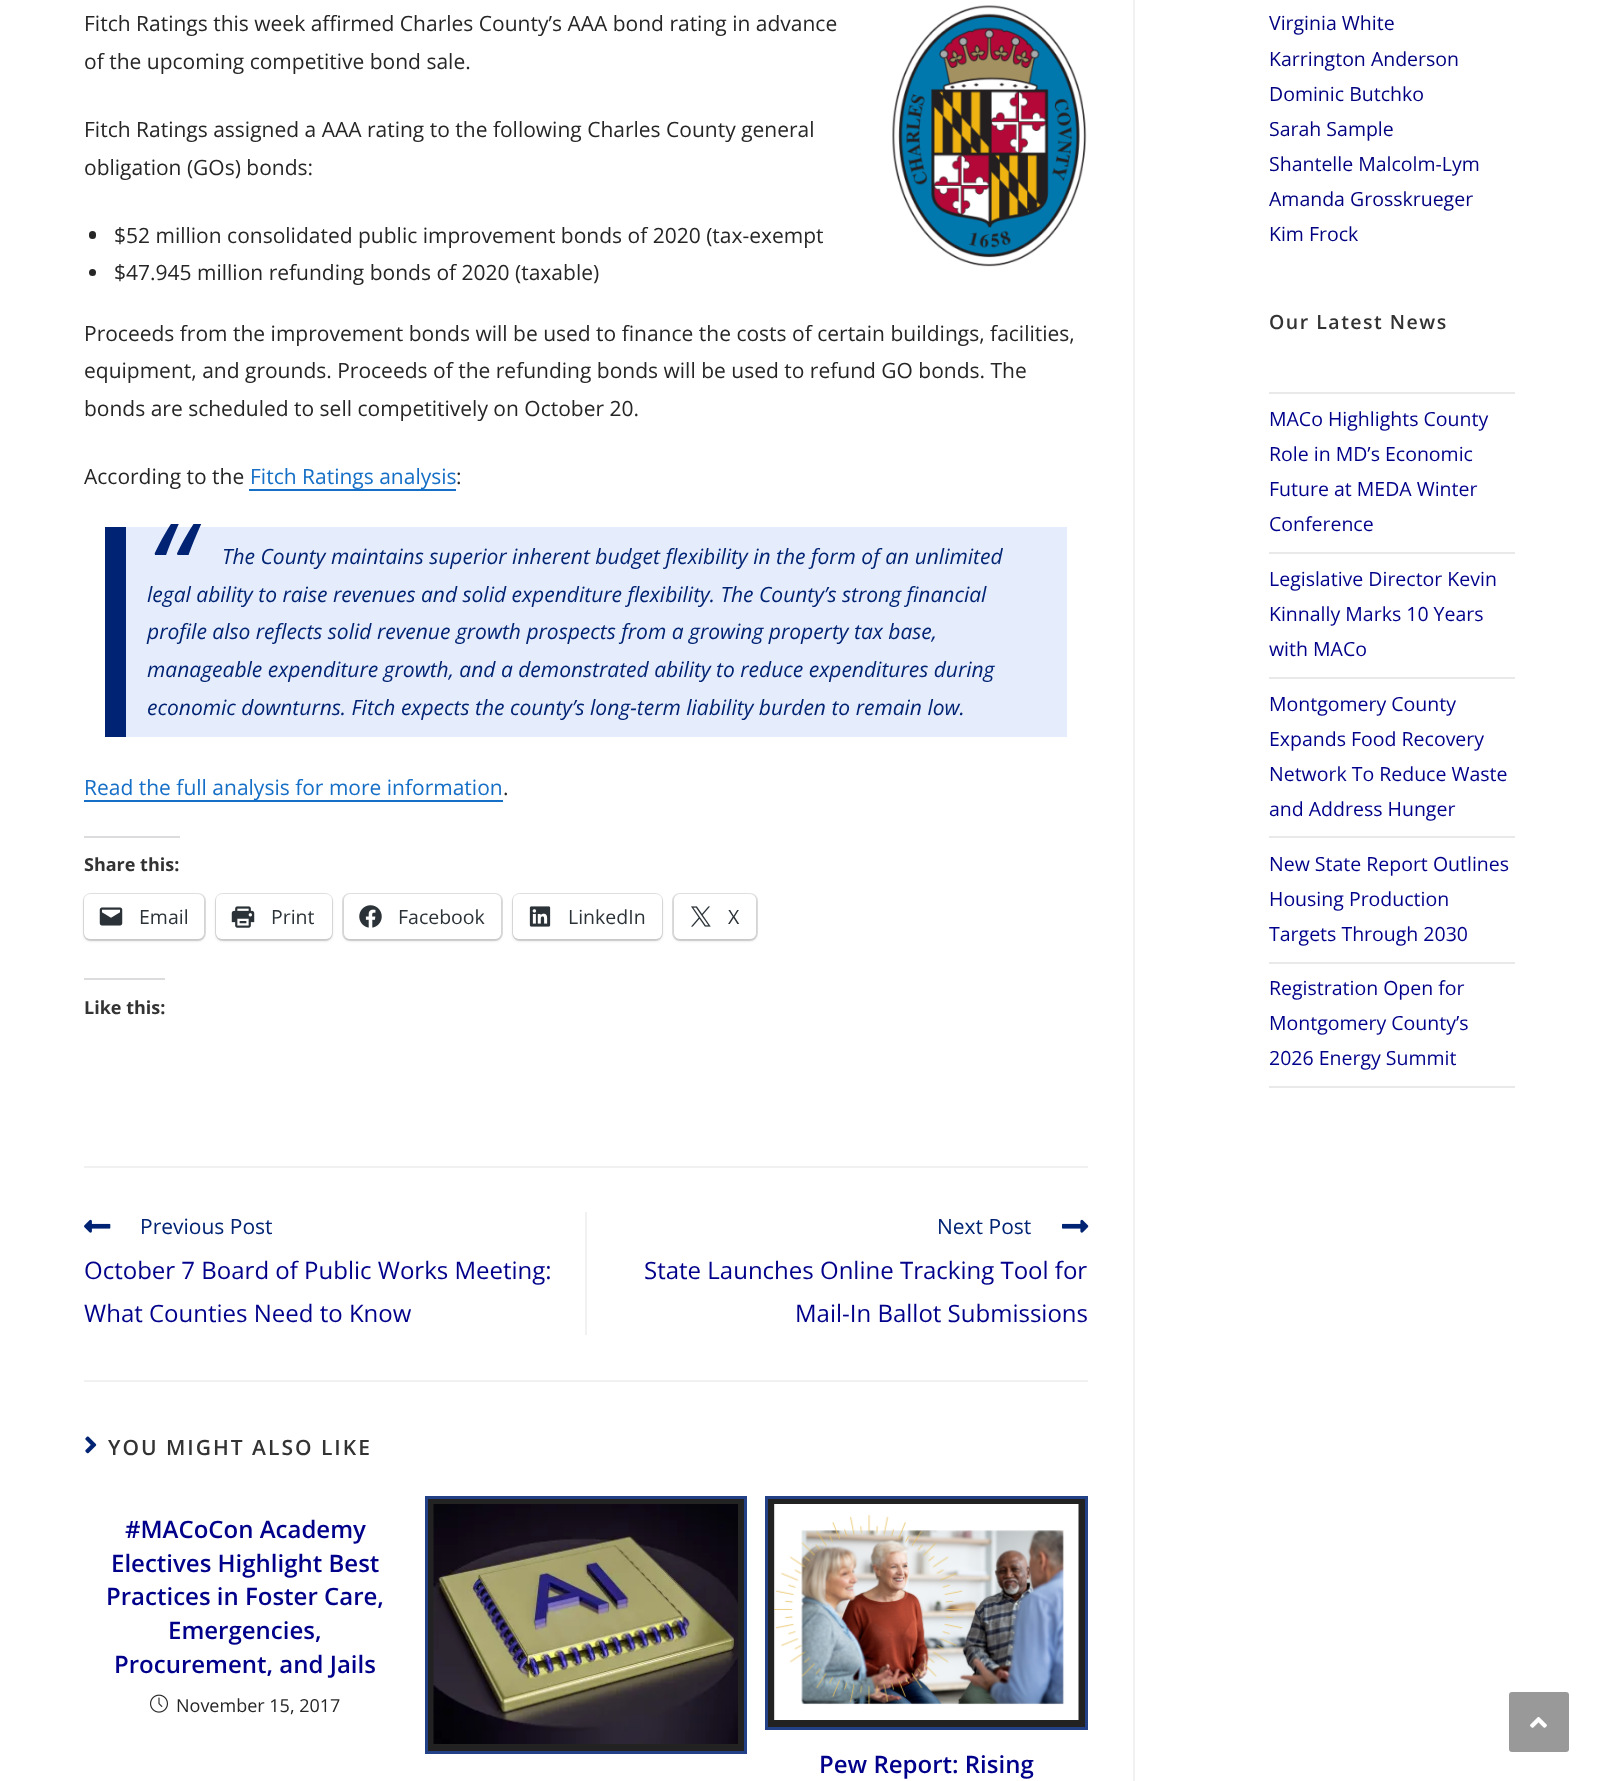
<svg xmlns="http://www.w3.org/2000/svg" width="1599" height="1781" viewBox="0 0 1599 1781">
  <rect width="100%" height="100%" fill="rgb(255,255,255)"/>
  <rect x="1133" y="0" width="2" height="1781" fill="rgb(241,241,241)"/>
  <text x="84" y="31" font-family="Open Sans" font-size="21" fill="rgb(38,38,38)">Fitch Ratings this week affirmed Charles County’s AAA bond rating in advance</text>
  <image x="892" y="5" width="195" height="262" href="pic1.png"/>
  <g font-family="Open Sans" font-size="21" fill="rgb(38,38,38)">
    <text x="84" y="69">of the upcoming competitive bond sale.</text>
    <text>
      <tspan x="84" y="137">Fitch Ratings assigned a AAA rating to the following Charles County general</tspan>
      <tspan x="84" y="175">obligation (GOs) bonds:</tspan>
    </text>
  </g>
  <rect x="89" y="231" width="7" height="8" rx="3.5" fill="rgb(38,38,38)"/>
  <text x="114" y="243" font-family="Open Sans" font-size="21" fill="rgb(38,38,38)">$52 million consolidated public improvement bonds of 2020 (tax-exempt</text>
  <circle cx="92.5" cy="272.5" r="3.5" fill="rgb(38,38,38)"/>
  <g font-family="Open Sans" font-size="21" fill="rgb(38,38,38)">
    <text x="114" y="280">$47.945 million refunding bonds of 2020 (taxable)</text>
    <text>
      <tspan x="84" y="341">Proceeds from the improvement bonds will be used to finance the costs of certain buildings, facilities,</tspan>
      <tspan x="84" y="378">equipment, and grounds. Proceeds of the refunding bonds will be used to refund GO bonds. The</tspan>
      <tspan x="84" y="416">bonds are scheduled to sell competitively on October 20.</tspan>
    </text>
    <text x="84" y="484">According to the</text>
  </g>
  <rect x="249" y="489" width="207" height="2" fill="rgb(22,111,199)"/>
  <text x="250" y="484" font-family="Open Sans" font-size="21" fill="rgb(22,111,199)">Fitch Ratings analysis</text>
  <text x="456" y="484" font-family="Open Sans" font-size="21" fill="rgb(38,38,38)">:</text>
  <rect x="126" y="527" width="941" height="210" fill="rgb(229,236,251)"/>
  <rect x="105" y="527" width="21" height="210" fill="rgb(0,35,116)"/>
  <text x="147" y="614" font-family="Open Sans" font-size="126" font-style="italic" fill="rgb(0,35,116)">“</text>
  <g font-family="Open Sans" font-size="21" font-style="italic" fill="rgb(0,35,116)">
    <text x="222" y="564">The County maintains superior inherent budget flexibility in the form of an unlimited</text>
    <text>
      <tspan x="147" y="602">legal ability to raise revenues and solid expenditure flexibility. The County’s strong financial</tspan>
      <tspan x="147" y="639">profile also reflects solid revenue growth prospects from a growing property tax base,</tspan>
      <tspan x="147" y="677">manageable expenditure growth, and a demonstrated ability to reduce expenditures during</tspan>
      <tspan x="147" y="715">economic downturns. Fitch expects the county’s long-term liability burden to remain low.</tspan>
    </text>
  </g>
  <rect x="84" y="800" width="419" height="2" fill="rgb(22,111,199)"/>
  <text x="84" y="795" font-family="Open Sans" font-size="21" fill="rgb(22,111,199)">Read the full analysis for more information</text>
  <text x="503" y="795" font-family="Open Sans" font-size="21" fill="rgb(38,38,38)">.</text>
  <rect x="84" y="836" width="96" height="2" fill="rgb(220,220,222)"/>
  <text x="84" y="871" font-family="Open Sans" font-size="18" font-weight="bold" fill="rgb(51,51,51)">Share this:</text>
  <rect x="84" y="894" width="121" height="46" rx="7" fill="none" stroke="rgb(224,224,224)" stroke-width="2"/>
  <rect x="84" y="896" width="120" height="45" rx="6" fill="rgba(0,0,0,0.12)" filter="blur(1.5px)"/>
  <rect x="84" y="894" width="120" height="45" rx="6" fill="rgb(255,255,255)"/>
  <image x="99" y="907" width="24" height="19" href="pic2.png"/>
  <text x="139" y="924" font-family="Open Sans" font-size="19.5" fill="rgb(44,51,56)">Email</text>
  <rect x="216" y="894" width="116" height="46" rx="7" fill="none" stroke="rgb(224,224,224)" stroke-width="2"/>
  <rect x="216" y="896" width="116" height="45" rx="6" fill="rgba(0,0,0,0.12)" filter="blur(1.5px)"/>
  <rect x="216" y="894" width="116" height="45" rx="6" fill="rgb(255,255,255)"/>
  <image x="231" y="906" width="24" height="22" href="pic3.png"/>
  <text x="271" y="924" font-family="Open Sans" font-size="19.5" fill="rgb(44,51,56)">Print</text>
  <rect x="343" y="894" width="159" height="46" rx="7" fill="none" stroke="rgb(224,224,224)" stroke-width="2"/>
  <rect x="344" y="896" width="157" height="45" rx="6" fill="rgba(0,0,0,0.12)" filter="blur(1.5px)"/>
  <rect x="344" y="894" width="157" height="45" rx="6" fill="rgb(255,255,255)"/>
  <image x="359" y="905" width="23" height="23" href="pic4.png"/>
  <text x="398" y="924" font-family="Open Sans" font-size="19.5" fill="rgb(44,51,56)">Facebook</text>
  <rect x="513" y="894" width="149" height="46" rx="7" fill="none" stroke="rgb(224,224,224)" stroke-width="2"/>
  <rect x="513" y="896" width="149" height="45" rx="6" fill="rgba(0,0,0,0.12)" filter="blur(1.5px)"/>
  <rect x="513" y="894" width="149" height="45" rx="6" fill="rgb(255,255,255)"/>
  <image x="529" y="906" width="22" height="21" href="pic5.png"/>
  <text x="568" y="924" font-family="Open Sans" font-size="19.5" fill="rgb(44,51,56)">LinkedIn</text>
  <rect x="673" y="894" width="84" height="46" rx="7" fill="none" stroke="rgb(224,224,224)" stroke-width="2"/>
  <rect x="674" y="896" width="82" height="45" rx="6" fill="rgba(0,0,0,0.12)" filter="blur(1.5px)"/>
  <rect x="674" y="894" width="82" height="45" rx="6" fill="rgb(255,255,255)"/>
  <image x="691" y="906" width="20" height="21" href="pic6.png"/>
  <text x="728" y="924" font-family="Open Sans" font-size="19.5" fill="rgb(44,51,56)">X</text>
  <rect x="84" y="978" width="81" height="2" fill="rgb(220,220,222)"/>
  <text x="84" y="1014" font-family="Open Sans" font-size="18" font-weight="bold" fill="rgb(51,51,51)">Like this:</text>
  <rect x="84" y="1166" width="1004" height="2" fill="rgb(241,241,241)"/>
  <rect x="585" y="1212" width="2" height="123" fill="rgb(241,241,241)"/>
  <image x="84" y="1219" width="27" height="14" href="pic7.png"/>
  <text x="140" y="1234" font-family="Open Sans" font-size="21" fill="rgb(0,35,116)">Previous Post</text>
  <g font-family="Open Sans" font-size="24" fill="rgb(0,0,139)">
    <text>
      <tspan x="84" y="1279">October 7 Board of Public Works Meeting:</tspan>
      <tspan x="84" y="1322">What Counties Need to Know</tspan>
    </text>
  </g>
  <text x="937" y="1234" font-family="Open Sans" font-size="21" fill="rgb(0,35,116)">Next Post</text>
  <image x="1062" y="1219" width="27" height="14" href="pic8.png"/>
  <g font-family="Open Sans" font-size="24" fill="rgb(0,0,139)">
    <text x="644" y="1279">State Launches Online Tracking Tool for</text>
    <text x="795" y="1322">Mail-In Ballot Submissions</text>
  </g>
  <rect x="84" y="1380" width="1004" height="2" fill="rgb(241,241,241)"/>
  <image x="85" y="1436" width="12" height="18" href="pic9.png"/>
  <text x="108" y="1455" font-family="Open Sans" font-size="21" font-weight="600" letter-spacing="2" fill="rgb(51,51,51)">YOU MIGHT ALSO LIKE</text>
  <g font-family="Open Sans" font-size="24" font-weight="600" fill="rgb(0,0,139)">
    <text x="125" y="1538">#MACoCon Academy</text>
    <text x="111" y="1572">Electives Highlight Best</text>
    <text x="106" y="1605">Practices in Foster Care,</text>
    <text x="168" y="1639">Emergencies,</text>
    <text x="114" y="1673">Procurement, and Jails</text>
  </g>
  <image x="150" y="1694" width="18" height="19" href="pic10.png"/>
  <text x="176" y="1712" font-family="Open Sans" font-size="18" fill="rgb(38,38,38)">November 15, 2017</text>
  <rect x="426.5" y="1497.5" width="319" height="255" fill="rgb(34,34,34)" stroke="rgb(35,65,135)" stroke-width="3"/>
  <image x="433" y="1504" width="305" height="240" href="pic11.png"/>
  <rect x="766.5" y="1497.5" width="320" height="231" fill="rgb(34,34,34)" stroke="rgb(35,65,135)" stroke-width="3"/>
  <image x="774" y="1504" width="305" height="216" href="pic12.png"/>
  <text x="819" y="1773" font-family="Open Sans" font-size="24" font-weight="600" fill="rgb(0,0,139)">Pew Report: Rising</text>
  <g font-family="Open Sans" font-size="19.5" fill="rgb(0,0,128)">
    <text>
      <tspan x="1269" y="30">Virginia White</tspan>
      <tspan x="1269" y="66">Karrington Anderson</tspan>
      <tspan x="1269" y="101">Dominic Butchko</tspan>
      <tspan x="1269" y="136">Sarah Sample</tspan>
      <tspan x="1269" y="171">Shantelle Malcolm-Lym</tspan>
      <tspan x="1269" y="206">Amanda Grosskrueger</tspan>
      <tspan x="1269" y="241">Kim Frock</tspan>
    </text>
  </g>
  <text x="1269" y="329" font-family="Open Sans" font-size="19.5" font-weight="600" letter-spacing="1.5" fill="rgb(51,51,51)">Our Latest News</text>
  <rect x="1269" y="392" width="246" height="2" fill="rgb(233,233,233)"/>
  <rect x="1269" y="552" width="246" height="2" fill="rgb(233,233,233)"/>
  <g font-family="Open Sans" font-size="19.5" fill="rgb(0,0,139)">
    <text>
      <tspan x="1269" y="426">MACo Highlights County</tspan>
      <tspan x="1269" y="461">Role in MD’s Economic</tspan>
      <tspan x="1269" y="496">Future at MEDA Winter</tspan>
      <tspan x="1269" y="531">Conference</tspan>
    </text>
  </g>
  <rect x="1269" y="677" width="246" height="2" fill="rgb(233,233,233)"/>
  <g font-family="Open Sans" font-size="19.5" fill="rgb(0,0,139)">
    <text>
      <tspan x="1269" y="586">Legislative Director Kevin</tspan>
      <tspan x="1269" y="621">Kinnally Marks 10 Years</tspan>
      <tspan x="1269" y="656">with MACo</tspan>
    </text>
  </g>
  <rect x="1269" y="836" width="246" height="2" fill="rgb(233,233,233)"/>
  <g font-family="Open Sans" font-size="19.5" fill="rgb(0,0,139)">
    <text>
      <tspan x="1269" y="711">Montgomery County</tspan>
      <tspan x="1269" y="746">Expands Food Recovery</tspan>
      <tspan x="1269" y="781">Network To Reduce Waste</tspan>
      <tspan x="1269" y="816">and Address Hunger</tspan>
    </text>
  </g>
  <rect x="1269" y="962" width="246" height="2" fill="rgb(233,233,233)"/>
  <g font-family="Open Sans" font-size="19.5" fill="rgb(0,0,139)">
    <text>
      <tspan x="1269" y="871">New State Report Outlines</tspan>
      <tspan x="1269" y="906">Housing Production</tspan>
      <tspan x="1269" y="941">Targets Through 2030</tspan>
    </text>
  </g>
  <rect x="1269" y="1086" width="246" height="2" fill="rgb(233,233,233)"/>
  <g font-family="Open Sans" font-size="19.5" fill="rgb(0,0,139)">
    <text>
      <tspan x="1269" y="995">Registration Open for</tspan>
      <tspan x="1269" y="1030">Montgomery County’s</tspan>
      <tspan x="1269" y="1065">2026 Energy Summit</tspan>
    </text>
  </g>
  <rect x="1509" y="1692" width="60" height="60" rx="3" fill="rgb(153,153,153)"/>
  <image x="1530" y="1717" width="17" height="11" href="pic13.png"/>
</svg>
